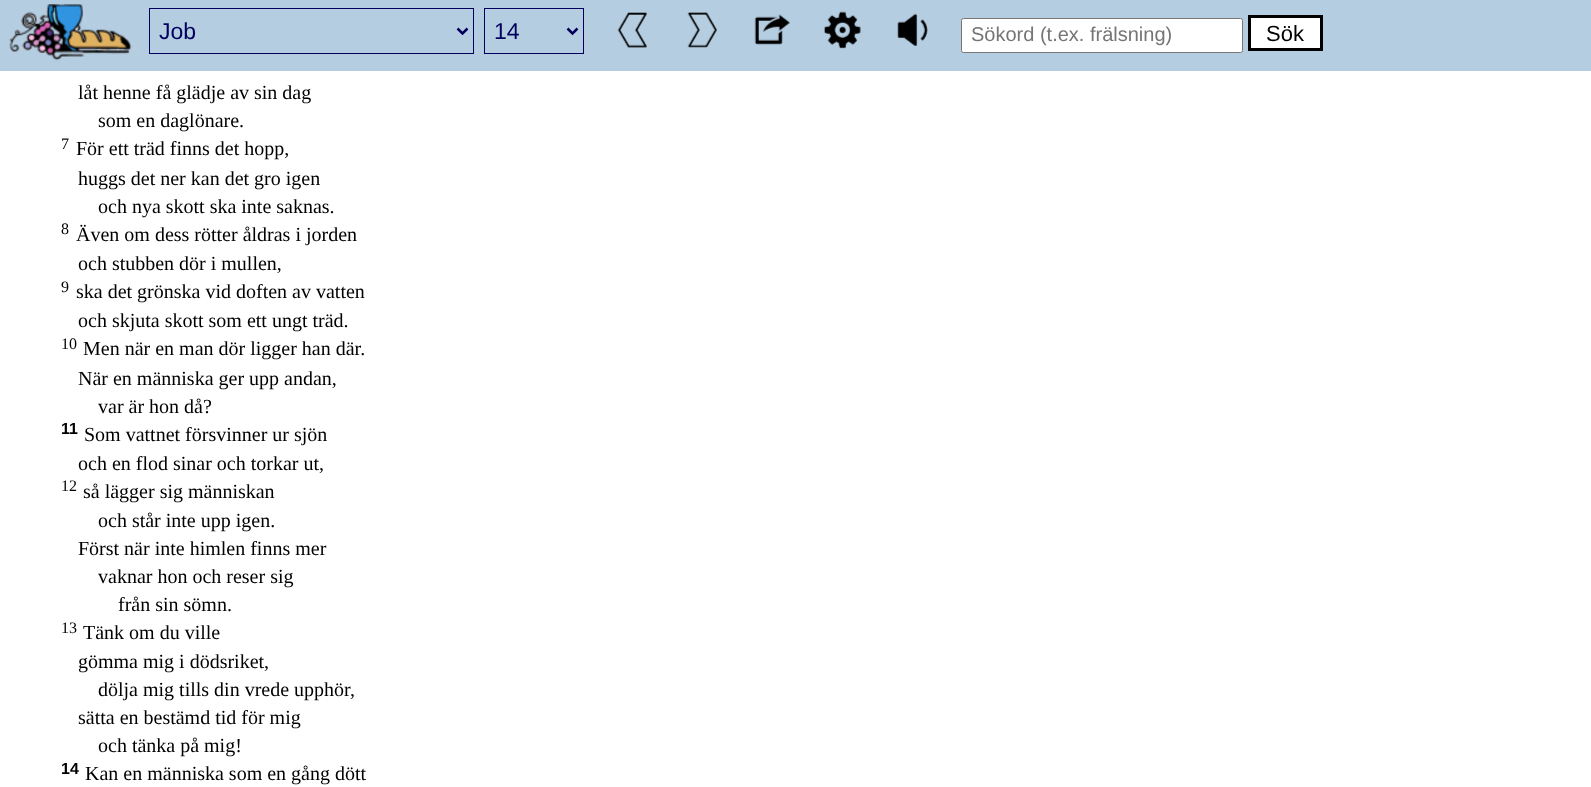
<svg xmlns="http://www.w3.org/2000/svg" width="1591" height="787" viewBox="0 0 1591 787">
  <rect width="100%" height="100%" fill="rgb(255,255,255)"/>
  <rect x="0" y="0" width="1591" height="71" fill="rgb(180,205,225)"/>
  <image x="8" y="4" width="131" height="57" href="pic1.png"/>
  <rect x="149.5" y="8.5" width="324" height="45" fill="none" stroke="rgb(1,0,94)"/>
  <path d="M457.5 28.5L462.5 33.5L467.5 28.5" fill="none" stroke="rgb(1,0,94)" stroke-width="2.5"/>
  <text x="159" y="39" font-family="Liberation Sans" font-size="23" fill="rgb(1,0,94)">Job</text>
  <rect x="484.5" y="8.5" width="99" height="45" fill="none" stroke="rgb(1,0,94)"/>
  <path d="M567.5 28.5L572.5 33.5L577.5 28.5" fill="none" stroke="rgb(1,0,94)" stroke-width="2.5"/>
  <text x="494" y="39" font-family="Liberation Sans" font-size="23" fill="rgb(1,0,94)">14</text>
  <image x="617" y="12" width="30" height="36" href="pic2.png"/>
  <image x="687" y="12" width="30" height="36" href="pic3.png"/>
  <image x="754" y="14" width="36" height="31" href="pic4.png"/>
  <image x="824" y="11" width="37" height="38" href="pic5.png"/>
  <image x="897" y="13" width="31" height="33" href="pic6.png"/>
  <rect x="961.5" y="18.5" width="281" height="34" rx="2" fill="rgb(255,255,255)" stroke="rgb(118,118,118)"/>
  <text x="971" y="41" font-family="Liberation Sans" font-size="20" fill="rgb(117,117,117)">Sökord (t.ex. frälsning)</text>
  <rect x="1249.5" y="16.5" width="72" height="33" fill="rgb(255,255,255)" stroke="rgb(0,0,0)" stroke-width="3"/>
  <text x="1266" y="41" font-family="Liberation Sans" font-size="22" fill="rgb(0,0,0)">Sök</text>
  <g font-family="Liberation Serif" font-size="20" fill="rgb(0,0,0)">
    <text x="78" y="99">låt henne få glädje av sin dag</text>
    <text x="98" y="127">som en daglönare.</text>
  </g>
  <text x="61" y="149" font-family="Liberation Serif" font-size="16" fill="rgb(0,0,0)">7</text>
  <g font-family="Liberation Serif" font-size="20" fill="rgb(0,0,0)">
    <text x="76" y="155">För ett träd finns det hopp,</text>
    <text x="78" y="185">huggs det ner kan det gro igen</text>
    <text x="98" y="213">och nya skott ska inte saknas.</text>
  </g>
  <text x="61" y="234" font-family="Liberation Serif" font-size="16" fill="rgb(0,0,0)">8</text>
  <g font-family="Liberation Serif" font-size="20" fill="rgb(0,0,0)">
    <text x="76" y="241">Även om dess rötter åldras i jorden</text>
    <text x="78" y="270">och stubben dör i mullen,</text>
  </g>
  <text x="61" y="292" font-family="Liberation Serif" font-size="16" fill="rgb(0,0,0)">9</text>
  <g font-family="Liberation Serif" font-size="20" fill="rgb(0,0,0)">
    <text x="76" y="298">ska det grönska vid doften av vatten</text>
    <text x="78" y="327">och skjuta skott som ett ungt träd.</text>
  </g>
  <text x="61" y="349" font-family="Liberation Serif" font-size="16" fill="rgb(0,0,0)">10</text>
  <g font-family="Liberation Serif" font-size="20" fill="rgb(0,0,0)">
    <text x="83" y="355">Men när en man dör ligger han där.</text>
    <text x="78" y="385">När en människa ger upp andan,</text>
    <text x="98" y="413">var är hon då?</text>
  </g>
  <text x="61" y="434" font-family="Liberation Sans" font-size="16" font-weight="bold" fill="rgb(0,0,0)">11</text>
  <g font-family="Liberation Serif" font-size="20" fill="rgb(0,0,0)">
    <text x="84" y="441">Som vattnet försvinner ur sjön</text>
    <text x="78" y="470">och en flod sinar och torkar ut,</text>
  </g>
  <text x="61" y="491" font-family="Liberation Serif" font-size="16" fill="rgb(0,0,0)">12</text>
  <g font-family="Liberation Serif" font-size="20" fill="rgb(0,0,0)">
    <text x="83" y="498">så lägger sig människan</text>
    <text x="98" y="527">och står inte upp igen.</text>
    <text x="78" y="555">Först när inte himlen finns mer</text>
    <text x="98" y="583">vaknar hon och reser sig</text>
    <text x="118" y="611">från sin sömn.</text>
  </g>
  <text x="61" y="633" font-family="Liberation Serif" font-size="16" fill="rgb(0,0,0)">13</text>
  <g font-family="Liberation Serif" font-size="20" fill="rgb(0,0,0)">
    <text x="83" y="639">Tänk om du ville</text>
    <text x="78" y="668">gömma mig i dödsriket,</text>
    <text x="98" y="696">dölja mig tills din vrede upphör,</text>
    <text x="78" y="724">sätta en bestämd tid för mig</text>
    <text x="98" y="752">och tänka på mig!</text>
  </g>
  <text x="61" y="774" font-family="Liberation Sans" font-size="16" font-weight="bold" fill="rgb(0,0,0)">14</text>
  <text x="85" y="780" font-family="Liberation Serif" font-size="20" fill="rgb(0,0,0)">Kan en människa som en gång dött</text>
</svg>
